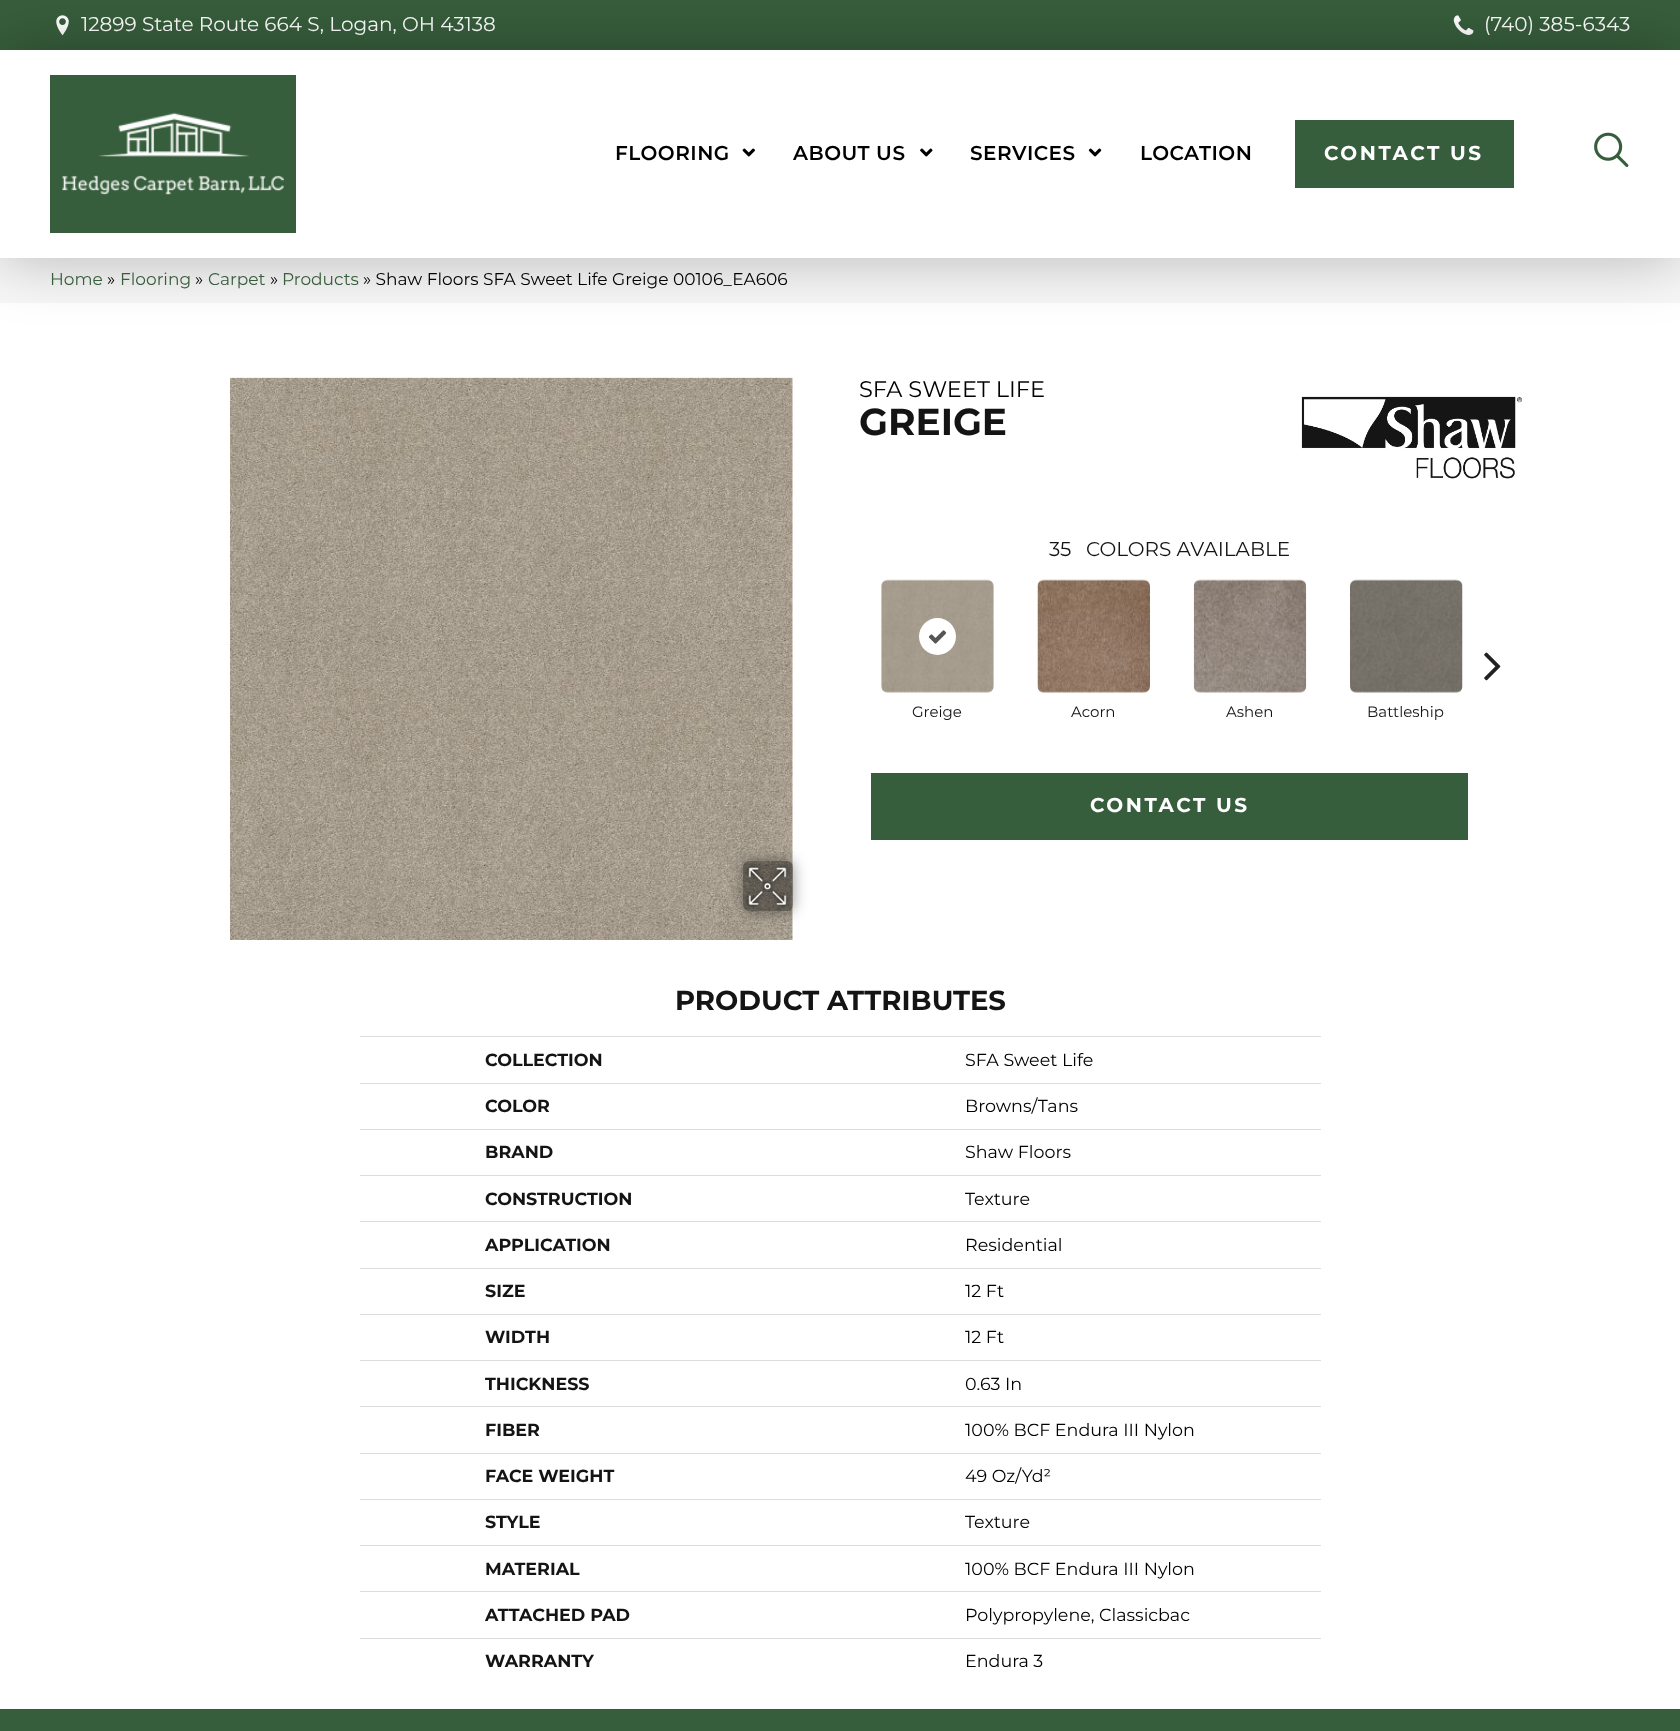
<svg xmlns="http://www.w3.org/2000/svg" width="1680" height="1731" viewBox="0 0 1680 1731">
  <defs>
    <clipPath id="clip1"><path d="M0 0H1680V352H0ZM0 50H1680V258H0Z" clip-rule="evenodd"/></clipPath>
    <clipPath id="clip2"><path d="M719 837H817V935H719ZM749 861H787C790.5 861 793 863.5 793 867V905C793 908.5 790.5 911 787 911H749C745.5 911 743 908.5 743 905V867C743 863.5 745.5 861 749 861Z" clip-rule="evenodd"/></clipPath>
  </defs>
  <rect width="100%" height="100%" fill="rgb(255,255,255)"/>
  <rect x="0" y="0" width="1680" height="50" fill="rgb(55,94,60)"/>
  <image x="56" y="15" width="13" height="21" href="pic1.png"/>
  <text x="81" y="31" font-family="Montserrat" font-size="20" fill="rgb(255,255,255)">12899 State Route 664 S, Logan, OH 43138</text>
  <image x="1453" y="15" width="21" height="20" href="pic2.png"/>
  <text x="1484" y="31" font-family="Montserrat" font-size="20" fill="rgb(255,255,255)">(740) 385-6343</text>
  <rect x="0" y="258" width="1680" height="45" fill="rgb(247,247,247)"/>
  <g clip-path="url(#clip1)">
    <rect x="0" y="50" width="1680" height="208" fill="rgba(0,0,0,0.27)" filter="blur(31px)"/>
  </g>
  <rect x="50" y="75" width="246" height="158" fill="rgb(55,94,60)"/>
  <image x="62" y="112" width="222" height="83" href="pic3.png"/>
  <text x="615" y="160" font-family="Montserrat" font-size="20" font-weight="600" letter-spacing="0.5" fill="rgb(0,0,0)">FLOORING</text>
  <image x="742" y="148" width="13" height="9" href="pic4.png"/>
  <text x="793" y="160" font-family="Montserrat" font-size="20" font-weight="600" letter-spacing="0.5" fill="rgb(0,0,0)">ABOUT US</text>
  <image x="920" y="148" width="13" height="9" href="pic5.png"/>
  <text x="970" y="160" font-family="Montserrat" font-size="20" font-weight="600" letter-spacing="0.5" fill="rgb(0,0,0)">SERVICES</text>
  <image x="1088" y="148" width="14" height="9" href="pic6.png"/>
  <text x="1140" y="160" font-family="Montserrat" font-size="20" font-weight="600" letter-spacing="0.5" fill="rgb(0,0,0)">LOCATION</text>
  <rect x="1295" y="120" width="219" height="68" fill="rgb(55,94,60)"/>
  <text x="1324" y="160" font-family="Montserrat" font-size="20" font-weight="bold" letter-spacing="2.5" fill="rgb(255,255,255)">CONTACT US</text>
  <image x="1594" y="132" width="35" height="35" href="pic7.png"/>
  <text x="50" y="285" font-family="Montserrat" font-size="17" fill="rgb(55,94,60)">Home</text>
  <text x="107" y="285" font-family="Montserrat" font-size="17" fill="rgb(0,0,0)">»</text>
  <text x="120" y="285" font-family="Montserrat" font-size="17" fill="rgb(55,94,60)">Flooring</text>
  <text x="195" y="285" font-family="Montserrat" font-size="17" fill="rgb(0,0,0)">»</text>
  <text x="208" y="285" font-family="Montserrat" font-size="17" fill="rgb(55,94,60)">Carpet</text>
  <text x="270" y="285" font-family="Montserrat" font-size="17" fill="rgb(0,0,0)">»</text>
  <text x="282" y="285" font-family="Montserrat" font-size="17" fill="rgb(55,94,60)">Products</text>
  <text x="363" y="285" font-family="Montserrat" font-size="17" fill="rgb(0,0,0)">» Shaw Floors SFA Sweet Life Greige 00106_EA606</text>
  <image x="230" y="377" width="563" height="563" href="pic8.png"/>
  <g clip-path="url(#clip2)">
    <rect x="743" y="861" width="50" height="50" rx="6" fill="rgba(0,0,0,0.41)" filter="blur(7.5px)"/>
  </g>
  <rect x="743" y="861" width="50" height="50" rx="6" fill="rgba(0,0,0,0.4)"/>
  <image x="745" y="864" width="45" height="45" href="pic9.png"/>
  <text x="859" y="397" font-family="Montserrat" font-size="22.5" fill="rgb(0,0,0)">SFA SWEET LIFE</text>
  <text x="859" y="435" font-family="Montserrat" font-size="37.5" font-weight="bold" fill="rgb(20,20,20)">GREIGE</text>
  <image x="1301" y="396" width="221" height="83" href="pic10.png"/>
  <g font-family="Montserrat" font-size="20" fill="rgb(20,20,20)">
    <text x="1049" y="556">35</text>
    <text x="1086" y="556">COLORS AVAILABLE</text>
  </g>
  <image x="1484" y="652" width="17" height="29" href="pic11.png"/>
  <image x="881" y="579" width="113" height="114" href="pic12.png"/>
  <circle cx="937.5" cy="636.5" r="18.5" fill="rgb(255,255,255)"/>
  <image x="928" y="630" width="19" height="14" href="pic13.png"/>
  <text x="912" y="717" font-family="Montserrat" font-size="15" fill="rgb(20,20,20)">Greige</text>
  <image x="1037" y="579" width="113" height="114" href="pic14.png"/>
  <text x="1071" y="717" font-family="Montserrat" font-size="15" fill="rgb(20,20,20)">Acorn</text>
  <image x="1193" y="579" width="114" height="114" href="pic15.png"/>
  <text x="1226" y="717" font-family="Montserrat" font-size="15" fill="rgb(20,20,20)">Ashen</text>
  <image x="1350" y="579" width="113" height="114" href="pic16.png"/>
  <text x="1367" y="717" font-family="Montserrat" font-size="15" fill="rgb(20,20,20)">Battleship</text>
  <rect x="871" y="773" width="597" height="67" fill="rgb(55,94,60)"/>
  <text x="1090" y="812" font-family="Montserrat" font-size="20" font-weight="bold" letter-spacing="2.5" fill="rgb(255,255,255)">CONTACT US</text>
  <text x="675" y="1010" font-family="Montserrat" font-size="27.5" font-weight="bold" fill="rgb(20,20,20)">PRODUCT ATTRIBUTES</text>
  <text x="485" y="1066" font-family="Montserrat" font-size="17.5" font-weight="bold" fill="rgb(20,20,20)">COLLECTION</text>
  <rect x="360" y="1036" width="961" height="1" fill="rgb(221,221,221)"/>
  <text x="965" y="1066" font-family="Montserrat" font-size="17.5" fill="rgb(0,0,0)">SFA Sweet Life</text>
  <text x="485" y="1112" font-family="Montserrat" font-size="17.5" font-weight="bold" fill="rgb(20,20,20)">COLOR</text>
  <rect x="360" y="1083" width="961" height="1" fill="rgb(221,221,221)"/>
  <text x="965" y="1112" font-family="Montserrat" font-size="17.5" fill="rgb(0,0,0)">Browns/Tans</text>
  <text x="485" y="1158" font-family="Montserrat" font-size="17.5" font-weight="bold" fill="rgb(20,20,20)">BRAND</text>
  <rect x="360" y="1129" width="961" height="1" fill="rgb(221,221,221)"/>
  <text x="965" y="1158" font-family="Montserrat" font-size="17.5" fill="rgb(0,0,0)">Shaw Floors</text>
  <text x="485" y="1205" font-family="Montserrat" font-size="17.5" font-weight="bold" fill="rgb(20,20,20)">CONSTRUCTION</text>
  <rect x="360" y="1175" width="961" height="1" fill="rgb(221,221,221)"/>
  <text x="965" y="1205" font-family="Montserrat" font-size="17.5" fill="rgb(0,0,0)">Texture</text>
  <text x="485" y="1251" font-family="Montserrat" font-size="17.5" font-weight="bold" fill="rgb(20,20,20)">APPLICATION</text>
  <rect x="360" y="1221" width="961" height="1" fill="rgb(221,221,221)"/>
  <text x="965" y="1251" font-family="Montserrat" font-size="17.5" fill="rgb(0,0,0)">Residential</text>
  <text x="485" y="1297" font-family="Montserrat" font-size="17.5" font-weight="bold" fill="rgb(20,20,20)">SIZE</text>
  <rect x="360" y="1268" width="961" height="1" fill="rgb(221,221,221)"/>
  <text x="965" y="1297" font-family="Montserrat" font-size="17.5" fill="rgb(0,0,0)">12 Ft</text>
  <text x="485" y="1343" font-family="Montserrat" font-size="17.5" font-weight="bold" fill="rgb(20,20,20)">WIDTH</text>
  <rect x="360" y="1314" width="961" height="1" fill="rgb(221,221,221)"/>
  <text x="965" y="1343" font-family="Montserrat" font-size="17.5" fill="rgb(0,0,0)">12 Ft</text>
  <text x="485" y="1390" font-family="Montserrat" font-size="17.5" font-weight="bold" fill="rgb(20,20,20)">THICKNESS</text>
  <rect x="360" y="1360" width="961" height="1" fill="rgb(221,221,221)"/>
  <text x="965" y="1390" font-family="Montserrat" font-size="17.5" fill="rgb(0,0,0)">0.63 In</text>
  <text x="485" y="1436" font-family="Montserrat" font-size="17.5" font-weight="bold" fill="rgb(20,20,20)">FIBER</text>
  <rect x="360" y="1406" width="961" height="1" fill="rgb(221,221,221)"/>
  <text x="965" y="1436" font-family="Montserrat" font-size="17.5" fill="rgb(0,0,0)">100% BCF Endura III Nylon</text>
  <text x="485" y="1482" font-family="Montserrat" font-size="17.5" font-weight="bold" fill="rgb(20,20,20)">FACE WEIGHT</text>
  <rect x="360" y="1453" width="961" height="1" fill="rgb(221,221,221)"/>
  <text x="965" y="1482" font-family="Montserrat" font-size="17.5" fill="rgb(0,0,0)">49 Oz/Yd²</text>
  <text x="485" y="1528" font-family="Montserrat" font-size="17.5" font-weight="bold" fill="rgb(20,20,20)">STYLE</text>
  <rect x="360" y="1499" width="961" height="1" fill="rgb(221,221,221)"/>
  <text x="965" y="1528" font-family="Montserrat" font-size="17.5" fill="rgb(0,0,0)">Texture</text>
  <text x="485" y="1575" font-family="Montserrat" font-size="17.5" font-weight="bold" fill="rgb(20,20,20)">MATERIAL</text>
  <rect x="360" y="1545" width="961" height="1" fill="rgb(221,221,221)"/>
  <text x="965" y="1575" font-family="Montserrat" font-size="17.5" fill="rgb(0,0,0)">100% BCF Endura III Nylon</text>
  <text x="485" y="1621" font-family="Montserrat" font-size="17.5" font-weight="bold" fill="rgb(20,20,20)">ATTACHED PAD</text>
  <rect x="360" y="1591" width="961" height="1" fill="rgb(221,221,221)"/>
  <text x="965" y="1621" font-family="Montserrat" font-size="17.5" fill="rgb(0,0,0)">Polypropylene, Classicbac</text>
  <text x="485" y="1667" font-family="Montserrat" font-size="17.5" font-weight="bold" fill="rgb(20,20,20)">WARRANTY</text>
  <rect x="360" y="1638" width="961" height="1" fill="rgb(221,221,221)"/>
  <text x="965" y="1667" font-family="Montserrat" font-size="17.5" fill="rgb(0,0,0)">Endura 3</text>
  <rect x="0" y="1709" width="1680" height="22" fill="rgb(55,94,60)"/>
</svg>
